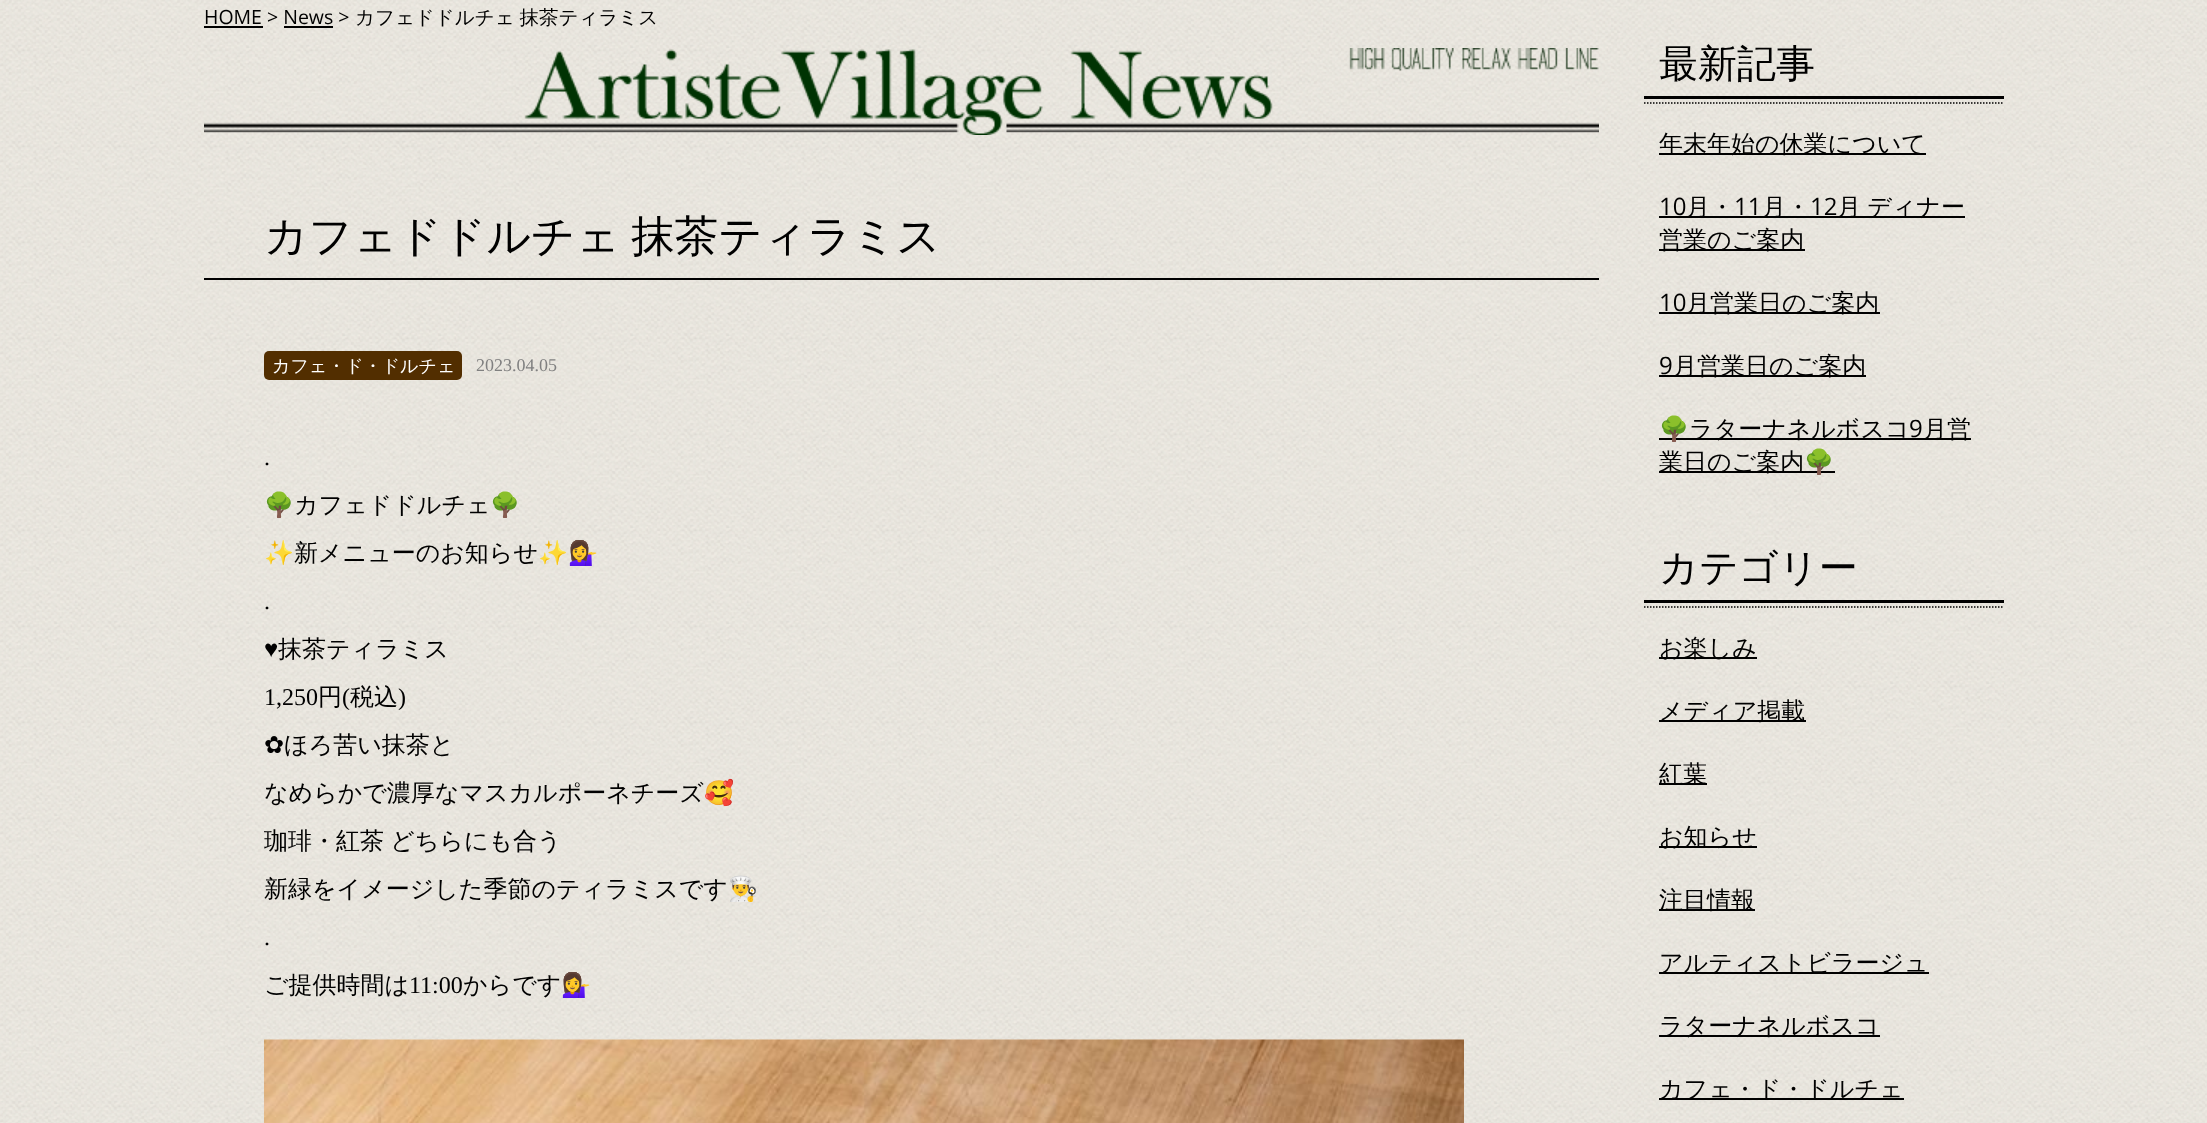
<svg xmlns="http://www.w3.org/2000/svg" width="2207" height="1123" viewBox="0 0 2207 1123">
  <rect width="100%" height="100%" fill="rgb(255,255,255)"/>
  <image x="0" y="0" width="2207" height="1123" href="pic1.png"/>
  <text x="204" y="24" font-family="Open Sans" font-size="19.5" fill="rgb(0,0,0)">HOME &gt; News &gt;</text>
  <rect x="204" y="26" width="59" height="2" fill="rgb(0,0,0)"/>
  <text x="355" y="24" word-spacing="-1" font-family="WenQuanYi Zen Hei" font-size="19.5" font-weight="500" fill="rgb(0,0,0)">カフェドドルチェ 抹茶ティラミス</text>
  <rect x="284" y="26" width="49" height="2" fill="rgb(0,0,0)"/>
  <image x="204" y="48" width="1395" height="87" href="pic2.png"/>
  <rect x="204" y="278" width="1395" height="2" fill="rgb(0,0,0)"/>
  <text x="264" y="251" word-spacing="-2" font-family="WenQuanYi Zen Hei" font-size="43.5" font-weight="500" fill="rgb(0,0,0)">カフェドドルチェ 抹茶ティラミス</text>
  <rect x="264" y="351" width="198" height="29" rx="5" fill="rgb(82,46,0)"/>
  <text x="272" y="372" font-family="WenQuanYi Zen Hei" font-size="18" font-weight="500" fill="rgb(255,255,255)">カフェ・ド・ドルチェ</text>
  <text x="476" y="371" font-family="Liberation Serif" font-size="18" fill="rgb(128,128,128)">2023.04.05</text>
  <text x="264" y="465" font-family="Liberation Serif" font-size="24" fill="rgb(0,0,0)">.</text>
  <text x="264" y="513" font-family="Noto Color Emoji" font-size="24" fill="rgb(0,0,0)">🌳</text>
  <text x="294" y="513" font-family="WenQuanYi Zen Hei" font-size="24" font-weight="500" fill="rgb(0,0,0)">カフェドドルチェ</text>
  <g font-family="Noto Color Emoji" font-size="24" fill="rgb(0,0,0)">
    <text x="490" y="513">🌳</text>
    <text x="264" y="561">✨</text>
  </g>
  <text x="294" y="561" font-family="WenQuanYi Zen Hei" font-size="24" font-weight="500" fill="rgb(0,0,0)">新メニューのお知らせ</text>
  <text x="538" y="561" font-family="Noto Color Emoji" font-size="24" fill="rgb(0,0,0)">✨💁‍♀️</text>
  <g font-family="Liberation Serif" font-size="24" fill="rgb(0,0,0)">
    <text x="264" y="609">.</text>
    <text x="264" y="657">♥</text>
  </g>
  <text x="278" y="657" font-family="WenQuanYi Zen Hei" font-size="24" font-weight="500" fill="rgb(0,0,0)">抹茶ティラミス</text>
  <text x="264" y="705" font-family="Liberation Serif" font-size="24" fill="rgb(0,0,0)">1,250</text>
  <text x="318" y="705" font-family="WenQuanYi Zen Hei" font-size="24" font-weight="500" fill="rgb(0,0,0)">円</text>
  <text x="342" y="705" font-family="Liberation Serif" font-size="24" fill="rgb(0,0,0)">(</text>
  <text x="350" y="705" font-family="WenQuanYi Zen Hei" font-size="24" font-weight="500" fill="rgb(0,0,0)">税込</text>
  <text x="398" y="705" font-family="Liberation Serif" font-size="24" fill="rgb(0,0,0)">)</text>
  <text x="264" y="753" font-family="DejaVu Sans" font-size="24" fill="rgb(0,0,0)">✿</text>
  <g font-family="WenQuanYi Zen Hei" font-size="24" font-weight="500" fill="rgb(0,0,0)">
    <text x="284" y="753">ほろ苦い抹茶と</text>
    <text x="264" y="801">なめらかで濃厚なマスカルポーネチーズ</text>
  </g>
  <text x="704" y="801" font-family="Noto Color Emoji" font-size="24" fill="rgb(0,0,0)">🥰</text>
  <g font-family="WenQuanYi Zen Hei" font-size="24" font-weight="500" fill="rgb(0,0,0)">
    <text x="264" y="849" word-spacing="-1">珈琲・紅茶 どちらにも合う</text>
    <text x="264" y="897">新緑をイメージした季節のティラミスです</text>
  </g>
  <text x="728" y="897" font-family="Noto Color Emoji" font-size="24" fill="rgb(0,0,0)">👨‍🍳</text>
  <text x="264" y="945" font-family="Liberation Serif" font-size="24" fill="rgb(0,0,0)">.</text>
  <text x="264" y="993" font-family="WenQuanYi Zen Hei" font-size="24" font-weight="500" fill="rgb(0,0,0)">ご提供時間は</text>
  <text x="409" y="993" font-family="Liberation Serif" font-size="24" fill="rgb(0,0,0)">11:00</text>
  <text x="463" y="993" font-family="WenQuanYi Zen Hei" font-size="24" font-weight="500" fill="rgb(0,0,0)">からです</text>
  <text x="561" y="993" font-family="Noto Color Emoji" font-size="24" fill="rgb(0,0,0)">💁‍♀️</text>
  <image x="264" y="1039" width="1200" height="84" href="pic3.png"/>
  <image x="1644" y="48" width="360" height="1075" href="pic4.png"/>
  <rect x="1644" y="96" width="360" height="3" fill="rgb(0,0,0)"/>
  <text x="1659" y="77" font-family="WenQuanYi Zen Hei" font-size="39" font-weight="500" fill="rgb(0,0,0)">最新記事</text>
  <path d="M1644 103H2004" fill="none" stroke="rgb(0,0,0)" stroke-width="1.5" stroke-dasharray="1.5 1.5"/>
  <rect x="1659" y="153" width="267" height="2" fill="rgb(0,0,0)"/>
  <text x="1659" y="152" font-family="WenQuanYi Zen Hei" font-size="24" font-weight="500" fill="rgb(0,0,0)">年末年始の休業について</text>
  <text x="1659" y="215" font-family="Open Sans" font-size="24" fill="rgb(0,0,0)">10</text>
  <rect x="1659" y="216" width="306" height="2" fill="rgb(0,0,0)"/>
  <text x="1686" y="215" font-family="WenQuanYi Zen Hei" font-size="24" font-weight="500" fill="rgb(0,0,0)">月・</text>
  <text x="1734" y="215" font-family="Open Sans" font-size="24" fill="rgb(0,0,0)">11</text>
  <text x="1762" y="215" font-family="WenQuanYi Zen Hei" font-size="24" font-weight="500" fill="rgb(0,0,0)">月・</text>
  <text x="1810" y="215" font-family="Open Sans" font-size="24" fill="rgb(0,0,0)">12</text>
  <text x="1837" y="215" word-spacing="-1" font-family="WenQuanYi Zen Hei" font-size="24" font-weight="500" fill="rgb(0,0,0)">月 ディナー</text>
  <rect x="1659" y="249" width="146" height="2" fill="rgb(0,0,0)"/>
  <text x="1659" y="248" font-family="WenQuanYi Zen Hei" font-size="24" font-weight="500" fill="rgb(0,0,0)">営業のご案内</text>
  <text x="1659" y="311" font-family="Open Sans" font-size="24" fill="rgb(0,0,0)">10</text>
  <rect x="1659" y="312" width="221" height="2" fill="rgb(0,0,0)"/>
  <text x="1686" y="311" font-family="WenQuanYi Zen Hei" font-size="24" font-weight="500" fill="rgb(0,0,0)">月営業日のご案内</text>
  <text x="1659" y="374" font-family="Open Sans" font-size="24" fill="rgb(0,0,0)">9</text>
  <rect x="1659" y="375" width="207" height="2" fill="rgb(0,0,0)"/>
  <text x="1673" y="374" font-family="WenQuanYi Zen Hei" font-size="24" font-weight="500" fill="rgb(0,0,0)">月営業日のご案内</text>
  <rect x="1659" y="438" width="312" height="2" fill="rgb(0,0,0)"/>
  <text x="1659" y="437" font-family="Noto Color Emoji" font-size="24" fill="rgb(0,0,0)">🌳</text>
  <text x="1689" y="437" font-family="WenQuanYi Zen Hei" font-size="24" font-weight="500" fill="rgb(0,0,0)">ラターナネルボスコ</text>
  <text x="1909" y="437" font-family="Open Sans" font-size="24" fill="rgb(0,0,0)">9</text>
  <text x="1923" y="437" font-family="WenQuanYi Zen Hei" font-size="24" font-weight="500" fill="rgb(0,0,0)">月営</text>
  <rect x="1659" y="471" width="176" height="2" fill="rgb(0,0,0)"/>
  <text x="1659" y="470" font-family="WenQuanYi Zen Hei" font-size="24" font-weight="500" fill="rgb(0,0,0)">業日のご案内</text>
  <text x="1804" y="470" font-family="Noto Color Emoji" font-size="24" fill="rgb(0,0,0)">🌳</text>
  <rect x="1644" y="600" width="360" height="3" fill="rgb(0,0,0)"/>
  <text x="1659" y="581" font-family="WenQuanYi Zen Hei" font-size="39" font-weight="500" fill="rgb(0,0,0)">カテゴリー</text>
  <path d="M1644 607H2004" fill="none" stroke="rgb(0,0,0)" stroke-width="1.5" stroke-dasharray="1.5 1.5"/>
  <rect x="1659" y="657" width="98" height="2" fill="rgb(0,0,0)"/>
  <text x="1659" y="656" font-family="WenQuanYi Zen Hei" font-size="24" font-weight="500" fill="rgb(0,0,0)">お楽しみ</text>
  <rect x="1659" y="720" width="147" height="2" fill="rgb(0,0,0)"/>
  <text x="1659" y="719" font-family="WenQuanYi Zen Hei" font-size="24" font-weight="500" fill="rgb(0,0,0)">メディア掲載</text>
  <rect x="1659" y="783" width="48" height="2" fill="rgb(0,0,0)"/>
  <text x="1659" y="782" font-family="WenQuanYi Zen Hei" font-size="24" font-weight="500" fill="rgb(0,0,0)">紅葉</text>
  <rect x="1659" y="846" width="98" height="2" fill="rgb(0,0,0)"/>
  <text x="1659" y="845" font-family="WenQuanYi Zen Hei" font-size="24" font-weight="500" fill="rgb(0,0,0)">お知らせ</text>
  <rect x="1659" y="909" width="96" height="2" fill="rgb(0,0,0)"/>
  <text x="1659" y="908" font-family="WenQuanYi Zen Hei" font-size="24" font-weight="500" fill="rgb(0,0,0)">注目情報</text>
  <rect x="1659" y="972" width="270" height="2" fill="rgb(0,0,0)"/>
  <text x="1659" y="971" font-family="WenQuanYi Zen Hei" font-size="24" font-weight="500" fill="rgb(0,0,0)">アルティストビラージュ</text>
  <rect x="1659" y="1035" width="221" height="2" fill="rgb(0,0,0)"/>
  <text x="1659" y="1034" font-family="WenQuanYi Zen Hei" font-size="24" font-weight="500" fill="rgb(0,0,0)">ラターナネルボスコ</text>
  <rect x="1659" y="1098" width="245" height="2" fill="rgb(0,0,0)"/>
  <text x="1659" y="1097" font-family="WenQuanYi Zen Hei" font-size="24" font-weight="500" fill="rgb(0,0,0)">カフェ・ド・ドルチェ</text>
</svg>
